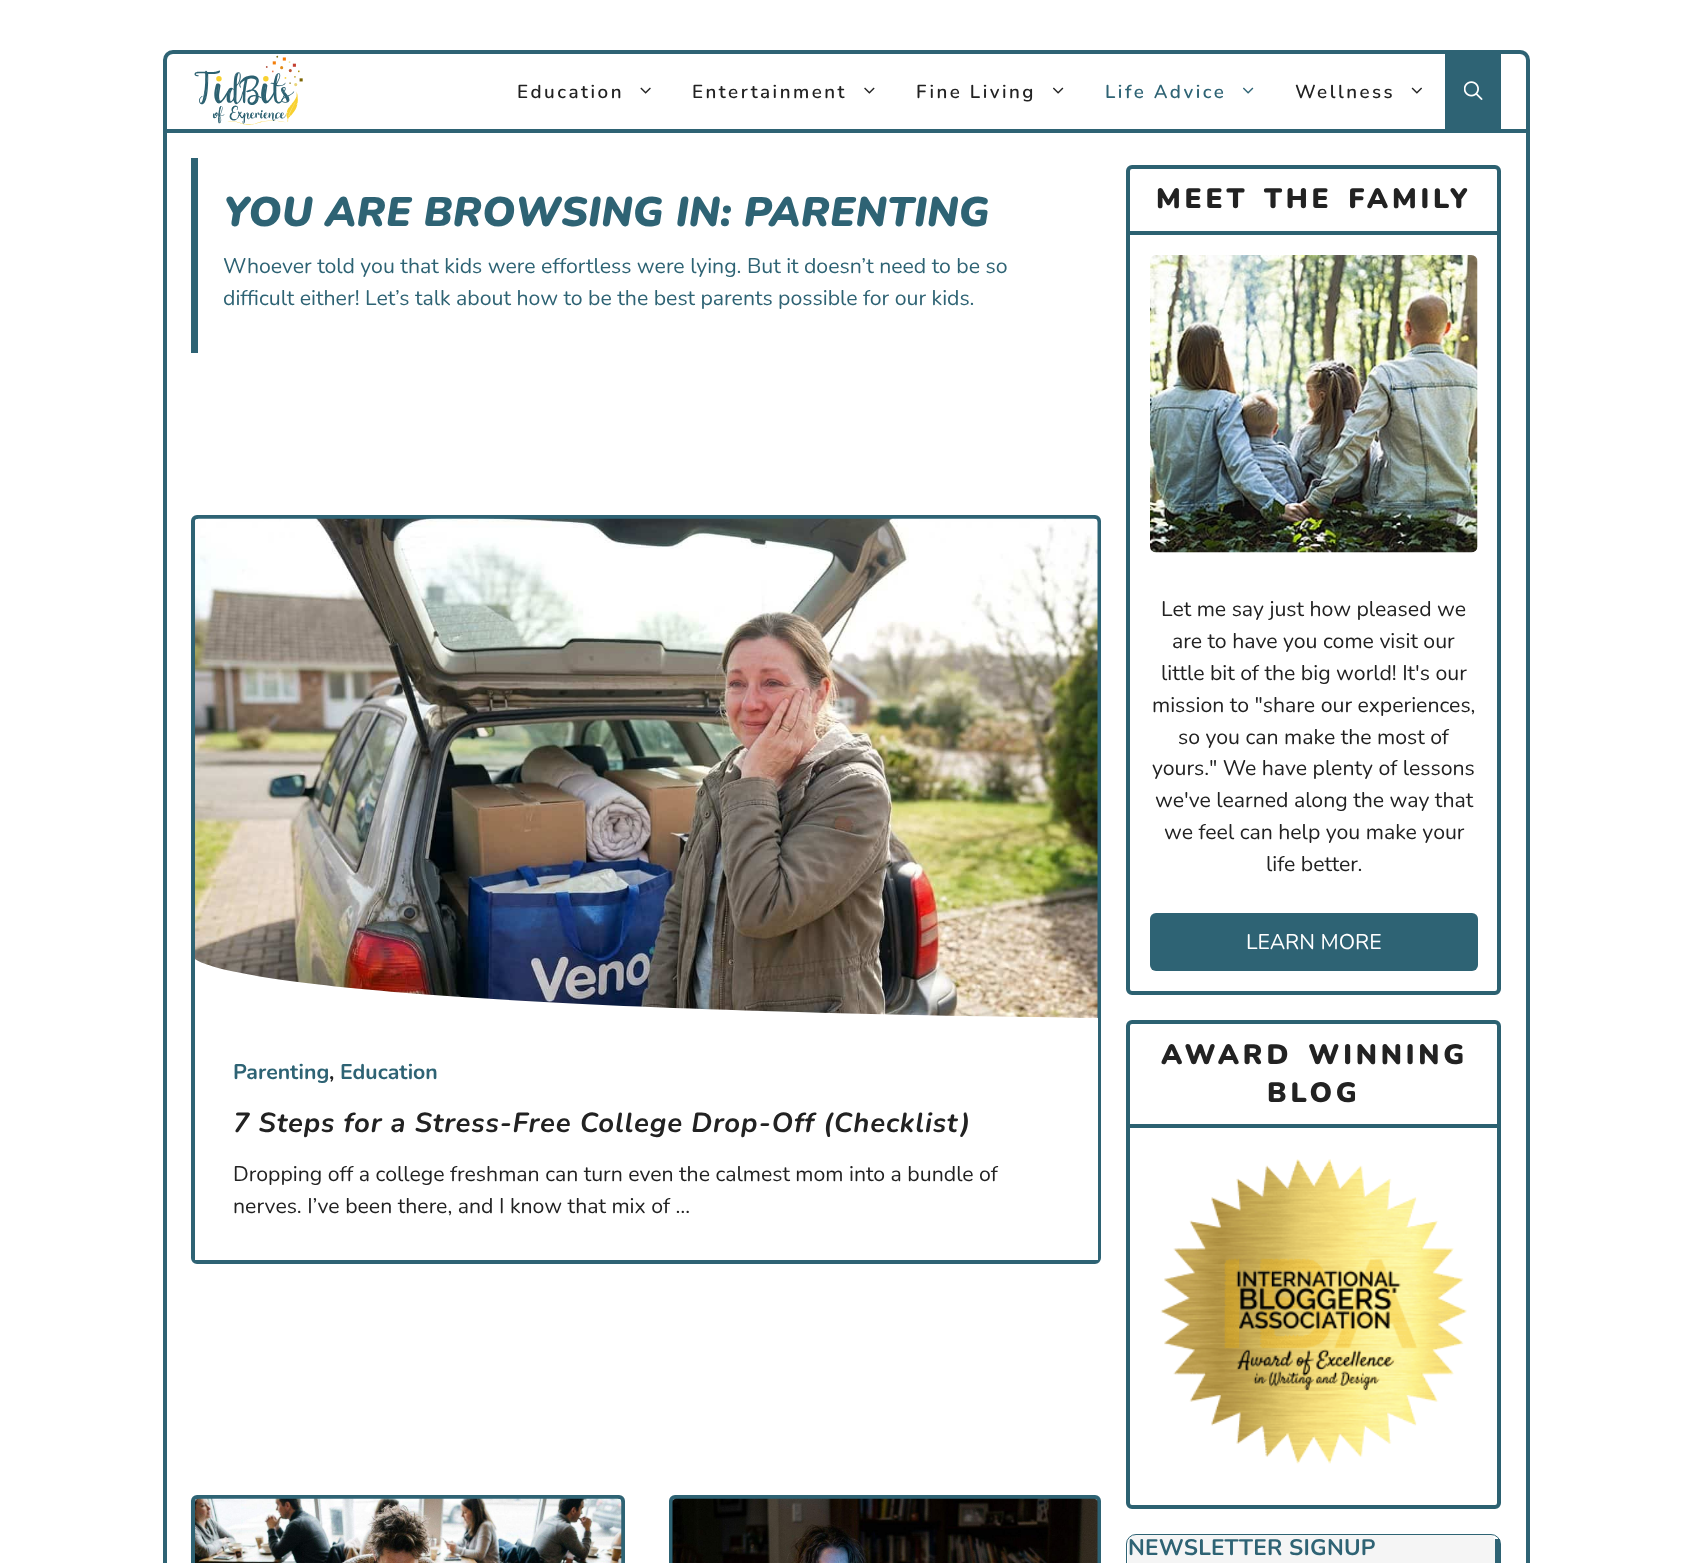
<svg xmlns="http://www.w3.org/2000/svg" width="1692" height="1563" viewBox="0 0 1692 1563">
  <defs>
    <clipPath id="clip1"><rect x="195" y="958" width="903" height="62"/></clipPath>
  </defs>
  <rect width="100%" height="100%" fill="rgb(255,255,255)"/>
  <path d="M173 52H1520C1524.5 52 1528 55.5 1528 60V131H165V60C165 55.5 168.5 52 173 52Z" fill="none" stroke="rgb(46,99,116)" stroke-width="4"/>
  <image x="194" y="55" width="109" height="70" href="pic1.png"/>
  <text x="517" y="98" font-family="Nunito" font-size="18.75" font-weight="600" letter-spacing="2.5" fill="rgb(34,34,34)">Education</text>
  <image x="640" y="87" width="11" height="7" href="pic2.png"/>
  <text x="692" y="98" font-family="Nunito" font-size="18.75" font-weight="600" letter-spacing="2.5" fill="rgb(34,34,34)">Entertainment</text>
  <image x="864" y="87" width="11" height="7" href="pic3.png"/>
  <text x="916" y="98" font-family="Nunito" font-size="18.75" font-weight="600" letter-spacing="2.5" fill="rgb(34,34,34)">Fine Living</text>
  <image x="1053" y="87" width="11" height="7" href="pic4.png"/>
  <text x="1105" y="98" font-family="Nunito" font-size="18.75" font-weight="600" letter-spacing="2.5" fill="rgb(46,99,116)">Life Advice</text>
  <image x="1243" y="87" width="11" height="7" href="pic5.png"/>
  <text x="1295" y="98" font-family="Nunito" font-size="18.75" font-weight="600" letter-spacing="2.5" fill="rgb(34,34,34)">Wellness</text>
  <image x="1411" y="87" width="11" height="7" href="pic6.png"/>
  <rect x="1445" y="54" width="56" height="75" fill="rgb(46,99,116)"/>
  <image x="1464" y="81" width="19" height="19" href="pic7.png"/>
  <rect x="1526" y="133" width="4" height="1430" fill="rgb(46,99,116)"/>
  <rect x="163" y="133" width="4" height="1430" fill="rgb(46,99,116)"/>
  <rect x="191" y="158" width="7" height="195" fill="rgb(46,99,116)"/>
  <text x="223" y="226" font-family="Nunito" font-size="41.25" font-weight="900" font-style="italic" letter-spacing="0.25" fill="rgb(46,99,116)">YOU ARE BROWSING IN: PARENTING</text>
  <g font-family="Nunito" font-size="21.25" fill="rgb(46,99,116)">
    <text>
      <tspan x="223" y="273">Whoever told you that kids were effortless were lying. But it doesn’t need to be so</tspan>
      <tspan x="223" y="305">difficult either! Let’s talk about how to be the best parents possible for our kids.</tspan>
    </text>
  </g>
  <rect x="193" y="517" width="906" height="745" rx="4" fill="none" stroke="rgb(46,99,116)" stroke-width="4"/>
  <image x="195" y="518" width="903" height="500" href="pic8.png"/>
  <g clip-path="url(#clip1)">
    <path d="M1098 1018V1020H194V958C194 958 211 1007 1098 1018Z" fill="rgb(255,255,255)"/>
  </g>
  <rect x="195" y="1020" width="903" height="240" fill="rgb(255,255,255)"/>
  <text x="233" y="1079" font-family="Nunito" font-size="21.25" font-weight="bold" fill="rgb(46,99,116)">Parenting</text>
  <text x="329" y="1079" font-family="Nunito" font-size="21.25" font-weight="bold" fill="rgb(34,34,34)">,</text>
  <text x="340" y="1079" font-family="Nunito" font-size="21.25" font-weight="bold" fill="rgb(46,99,116)">Education</text>
  <text x="233" y="1132" font-family="Nunito" font-size="27.5" font-weight="bold" font-style="italic" letter-spacing="0.83" fill="rgb(34,34,34)">7 Steps for a Stress-Free College Drop-Off (Checklist)</text>
  <g font-family="Nunito" font-size="21.25" fill="rgb(34,34,34)">
    <text>
      <tspan x="233" y="1181">Dropping off a college freshman can turn even the calmest mom into a bundle of</tspan>
      <tspan x="233" y="1213">nerves. I’ve been there, and I know that mix of …</tspan>
    </text>
  </g>
  <rect x="193" y="1497" width="430" height="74" rx="4" fill="none" stroke="rgb(46,99,116)" stroke-width="4"/>
  <image x="195" y="1498" width="427" height="65" href="pic9.png"/>
  <rect x="671" y="1497" width="428" height="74" rx="4" fill="none" stroke="rgb(46,99,116)" stroke-width="4"/>
  <image x="672" y="1498" width="426" height="65" href="pic10.png"/>
  <rect x="1128" y="167" width="371" height="826" rx="4" fill="none" stroke="rgb(44,97,113)" stroke-width="4"/>
  <rect x="1130" y="231" width="368" height="4" fill="rgb(44,97,113)"/>
  <text x="1156" y="208" word-spacing="4" font-family="Nunito" font-size="28" font-weight="900" letter-spacing="3.75" fill="rgb(34,34,34)">MEET THE FAMILY</text>
  <image x="1150" y="255" width="328" height="298" href="pic11.png"/>
  <g font-family="Nunito" font-size="21.25" fill="rgb(34,34,34)">
    <text x="1161" y="616">Let me say just how pleased we</text>
    <text x="1172" y="648">are to have you come visit our</text>
    <text x="1161" y="680">little bit of the big world! It's our</text>
    <text x="1152" y="712">mission to "share our experiences,</text>
    <text x="1178" y="744">so you can make the most of</text>
    <text x="1152" y="775">yours." We have plenty of lessons</text>
    <text x="1155" y="807">we've learned along the way that</text>
    <text x="1164" y="839">we feel can help you make your</text>
    <text x="1266" y="871">life better.</text>
  </g>
  <rect x="1150" y="913" width="328" height="58" rx="6" fill="rgb(46,99,116)"/>
  <text x="1246" y="949" font-family="Nunito" font-size="21.25" fill="rgb(255,255,255)">LEARN MORE</text>
  <rect x="1128" y="1022" width="371" height="485" rx="4" fill="none" stroke="rgb(44,97,113)" stroke-width="4"/>
  <rect x="1130" y="1124" width="368" height="4" fill="rgb(44,97,113)"/>
  <g font-family="Nunito" font-size="28" font-weight="900" letter-spacing="3.75" fill="rgb(34,34,34)">
    <text x="1161" y="1064" word-spacing="4">AWARD WINNING</text>
    <text x="1267" y="1102">BLOG</text>
  </g>
  <image x="1160" y="1159" width="307" height="305" href="pic12.png"/>
  <path d="M1136 1535H1491C1493 1535 1495 1539 1495 1544V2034C1495 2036 1493 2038 1491 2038H1136C1131 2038 1128 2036 1128 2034V1544C1128 1539 1131 1535 1136 1535Z" fill="rgb(245,245,245)"/>
  <rect x="1126.5" y="1534.5" width="374" height="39" rx="9.5" fill="none" stroke="rgb(46,99,116)"/>
  <rect x="1495" y="1539" width="5" height="24" fill="rgb(46,99,116)"/>
  <text x="1128" y="1555" font-family="Nunito" font-size="22.5" font-weight="bold" letter-spacing="0.25" fill="rgb(46,99,116)">NEWSLETTER SIGNUP</text>
</svg>
